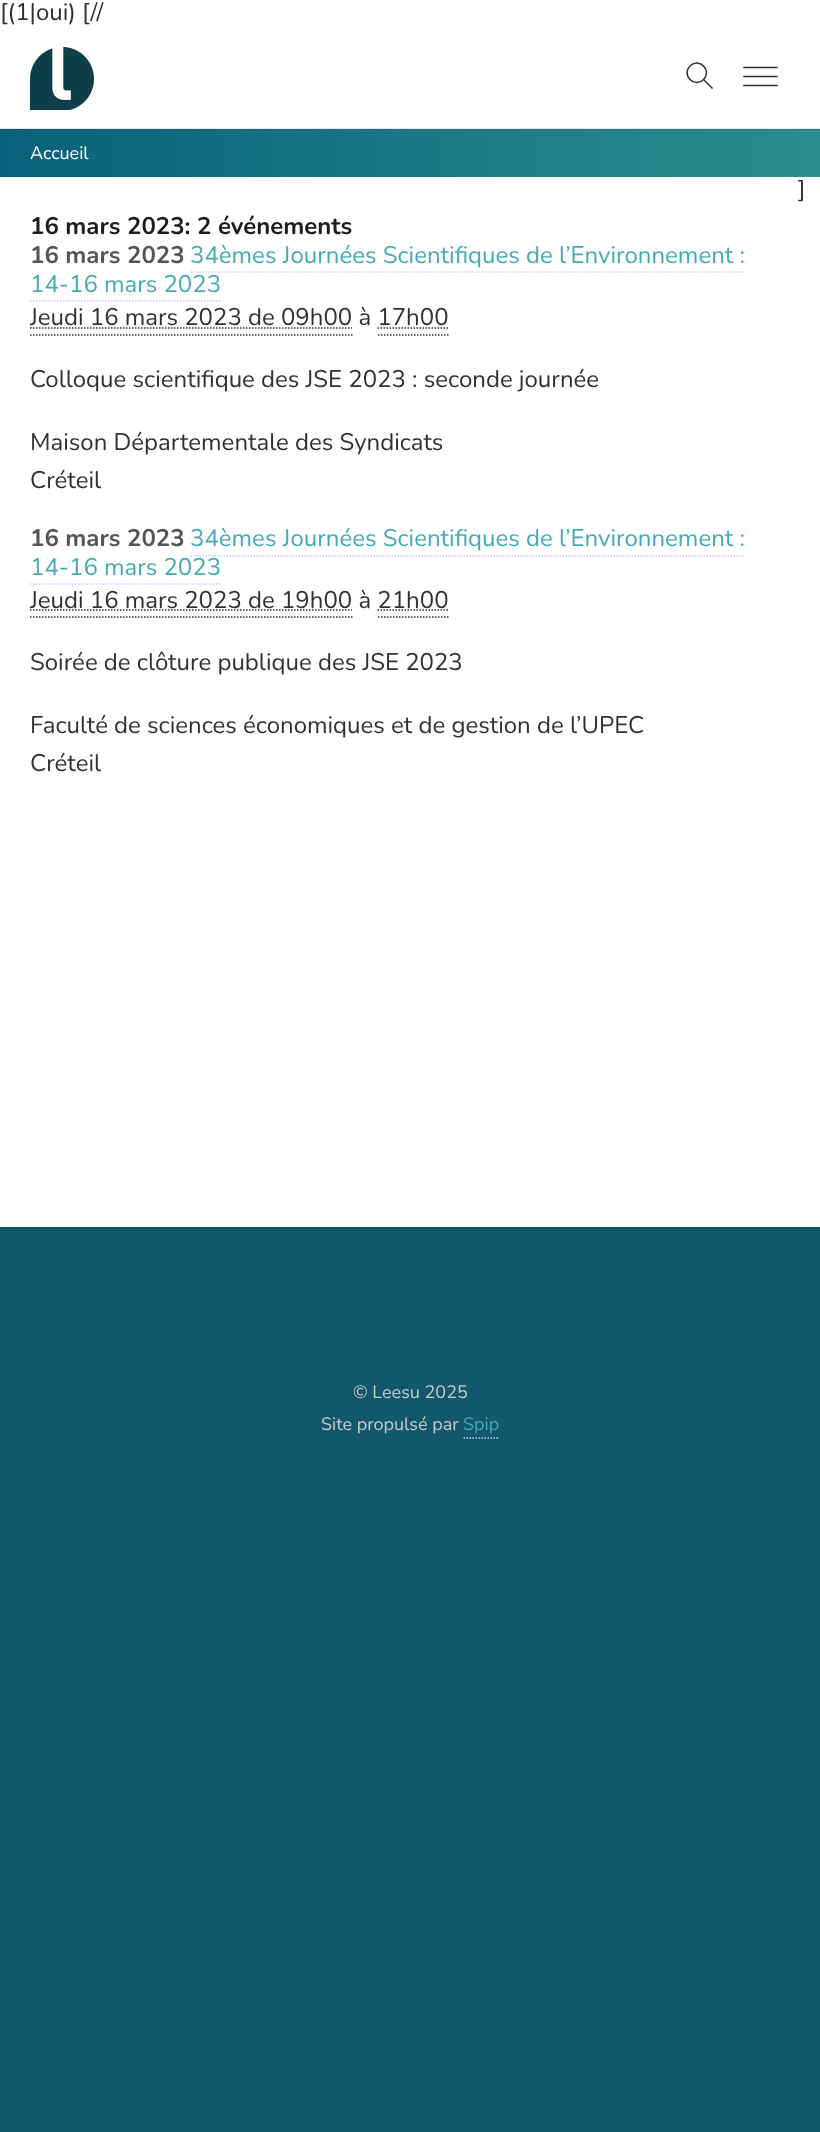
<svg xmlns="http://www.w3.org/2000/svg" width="820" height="2132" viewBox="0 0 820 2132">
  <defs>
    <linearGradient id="g1" gradientUnits="userSpaceOnUse" x1="0" y1="153" x2="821" y2="153"><stop offset="0" stop-color="rgb(11,96,123)"/><stop offset="1" stop-color="rgb(45,141,144)"/></linearGradient>
    <linearGradient id="g2" gradientUnits="userSpaceOnUse" x1="0" y1="153" x2="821" y2="153"><stop offset="0" stop-color="rgb(13,89,114)"/><stop offset="1" stop-color="rgb(43,130,133)"/></linearGradient>
  </defs>
  <rect width="100%" height="100%" fill="rgb(255,255,255)"/>
  <rect x="0" y="128" width="820" height="1" fill="rgb(232,232,233)"/>
  <text x="0" y="20" font-family="Nunito" font-size="24" fill="rgb(49,49,53)">[(1|oui) [//</text>
  <image x="30" y="46" width="64" height="64" href="pic1.png"/>
  <path d="M703.5 79.5L712 88M703.5 66C712.5 75 699 88.5 690 79.5C681 70.5 694.5 57 703.5 66" fill="none" stroke="rgb(49,49,53)" stroke-width="1.5" stroke-linecap="square"/>
  <path d="M744 67.5H777M744 76.5H777M744 85.5H777" fill="none" stroke="rgb(49,49,53)" stroke-width="1.5" stroke-linecap="square"/>
  <rect x="0" y="130" width="820" height="47" fill="url(#g1)"/>
  <rect x="0" y="129" width="820" height="1" fill="url(#g2)"/>
  <text x="30" y="159" font-family="Nunito" font-size="18" fill="rgb(255,255,255)">Accueil</text>
  <text x="798" y="197" font-family="Nunito" font-size="24" fill="rgb(49,49,53)">]</text>
  <text x="30" y="234" font-family="Nunito" font-size="24" font-weight="bold" fill="rgb(28,28,33)">16 mars 2023: 2 événements</text>
  <text x="30" y="263" font-family="Nunito" font-size="24" font-weight="bold" fill="rgb(85,85,85)">16 mars 2023</text>
  <g font-family="Nunito" font-size="24" fill="rgb(69,170,183)">
    <text x="190" y="263">34èmes Journées Scientifiques de l’Environnement :</text>
    <text x="30" y="292">14-16 mars 2023</text>
  </g>
  <path d="M190.5 272H745.5" fill="none" stroke="rgb(204,204,255)" stroke-width="1.5" stroke-dasharray="1.5 1.5"/>
  <path d="M30 301H220.5" fill="none" stroke="rgb(204,204,255)" stroke-width="1.5" stroke-dasharray="1.5 1.5"/>
  <text x="30" y="325" font-family="Nunito" font-size="24" fill="rgb(49,49,53)">Jeudi 16 mars 2023 de 09h00 à 17h00</text>
  <path d="M30 335H352.5" fill="none" stroke="rgb(51,51,51)" stroke-width="1.5" stroke-dasharray="1.5 1.5"/>
  <path d="M30 328H352" fill="none" stroke="rgb(51,51,51)" stroke-width="1.5" stroke-dasharray="1.5 1.5"/>
  <path d="M378 335H448.5" fill="none" stroke="rgb(51,51,51)" stroke-width="1.5" stroke-dasharray="1.5 1.5"/>
  <path d="M377.5 328H448.5" fill="none" stroke="rgb(51,51,51)" stroke-width="1.5" stroke-dasharray="1.5 1.5"/>
  <g font-family="Nunito" font-size="24" fill="rgb(49,49,53)">
    <text x="30" y="387">Colloque scientifique des JSE 2023 : seconde journée</text>
    <text>
      <tspan x="30" y="450">Maison Départementale des Syndicats</tspan>
      <tspan x="30" y="488">Créteil</tspan>
    </text>
  </g>
  <text x="30" y="546" font-family="Nunito" font-size="24" font-weight="bold" fill="rgb(85,85,85)">16 mars 2023</text>
  <g font-family="Nunito" font-size="24" fill="rgb(69,170,183)">
    <text x="190" y="546">34èmes Journées Scientifiques de l’Environnement :</text>
    <text x="30" y="575">14-16 mars 2023</text>
  </g>
  <path d="M190.5 556H745.5" fill="none" stroke="rgb(204,204,255)" stroke-width="1.5" stroke-dasharray="1.5 1.5"/>
  <path d="M30 584H220.5" fill="none" stroke="rgb(204,204,255)" stroke-width="1.5" stroke-dasharray="1.5 1.5"/>
  <text x="30" y="608" font-family="Nunito" font-size="24" fill="rgb(49,49,53)">Jeudi 16 mars 2023 de 19h00 à 21h00</text>
  <path d="M30 617H352.5" fill="none" stroke="rgb(51,51,51)" stroke-width="1.5" stroke-dasharray="1.5 1.5"/>
  <path d="M30 610H352" fill="none" stroke="rgb(51,51,51)" stroke-width="1.5" stroke-dasharray="1.5 1.5"/>
  <path d="M378 617H448.5" fill="none" stroke="rgb(51,51,51)" stroke-width="1.5" stroke-dasharray="1.5 1.5"/>
  <path d="M377.5 610H448.5" fill="none" stroke="rgb(51,51,51)" stroke-width="1.5" stroke-dasharray="1.5 1.5"/>
  <g font-family="Nunito" font-size="24" fill="rgb(49,49,53)">
    <text x="30" y="670">Soirée de clôture publique des JSE 2023</text>
    <text>
      <tspan x="30" y="733">Faculté de sciences économiques et de gestion de l’UPEC</tspan>
      <tspan x="30" y="771">Créteil</tspan>
    </text>
  </g>
  <rect x="0" y="1227" width="820" height="905" fill="rgb(19,87,108)"/>
  <g font-family="Nunito" font-size="18" fill="rgb(199,202,204)">
    <text x="353" y="1398">© Leesu 2025</text>
    <text x="321" y="1430">Site propulsé par</text>
  </g>
  <text x="463" y="1430" font-family="Nunito" font-size="18" fill="rgb(69,170,183)">Spip</text>
  <path d="M463.5 1438H499.5" fill="none" stroke="rgb(204,204,255)" stroke-width="1.5" stroke-dasharray="1.5 1.5"/>
</svg>
